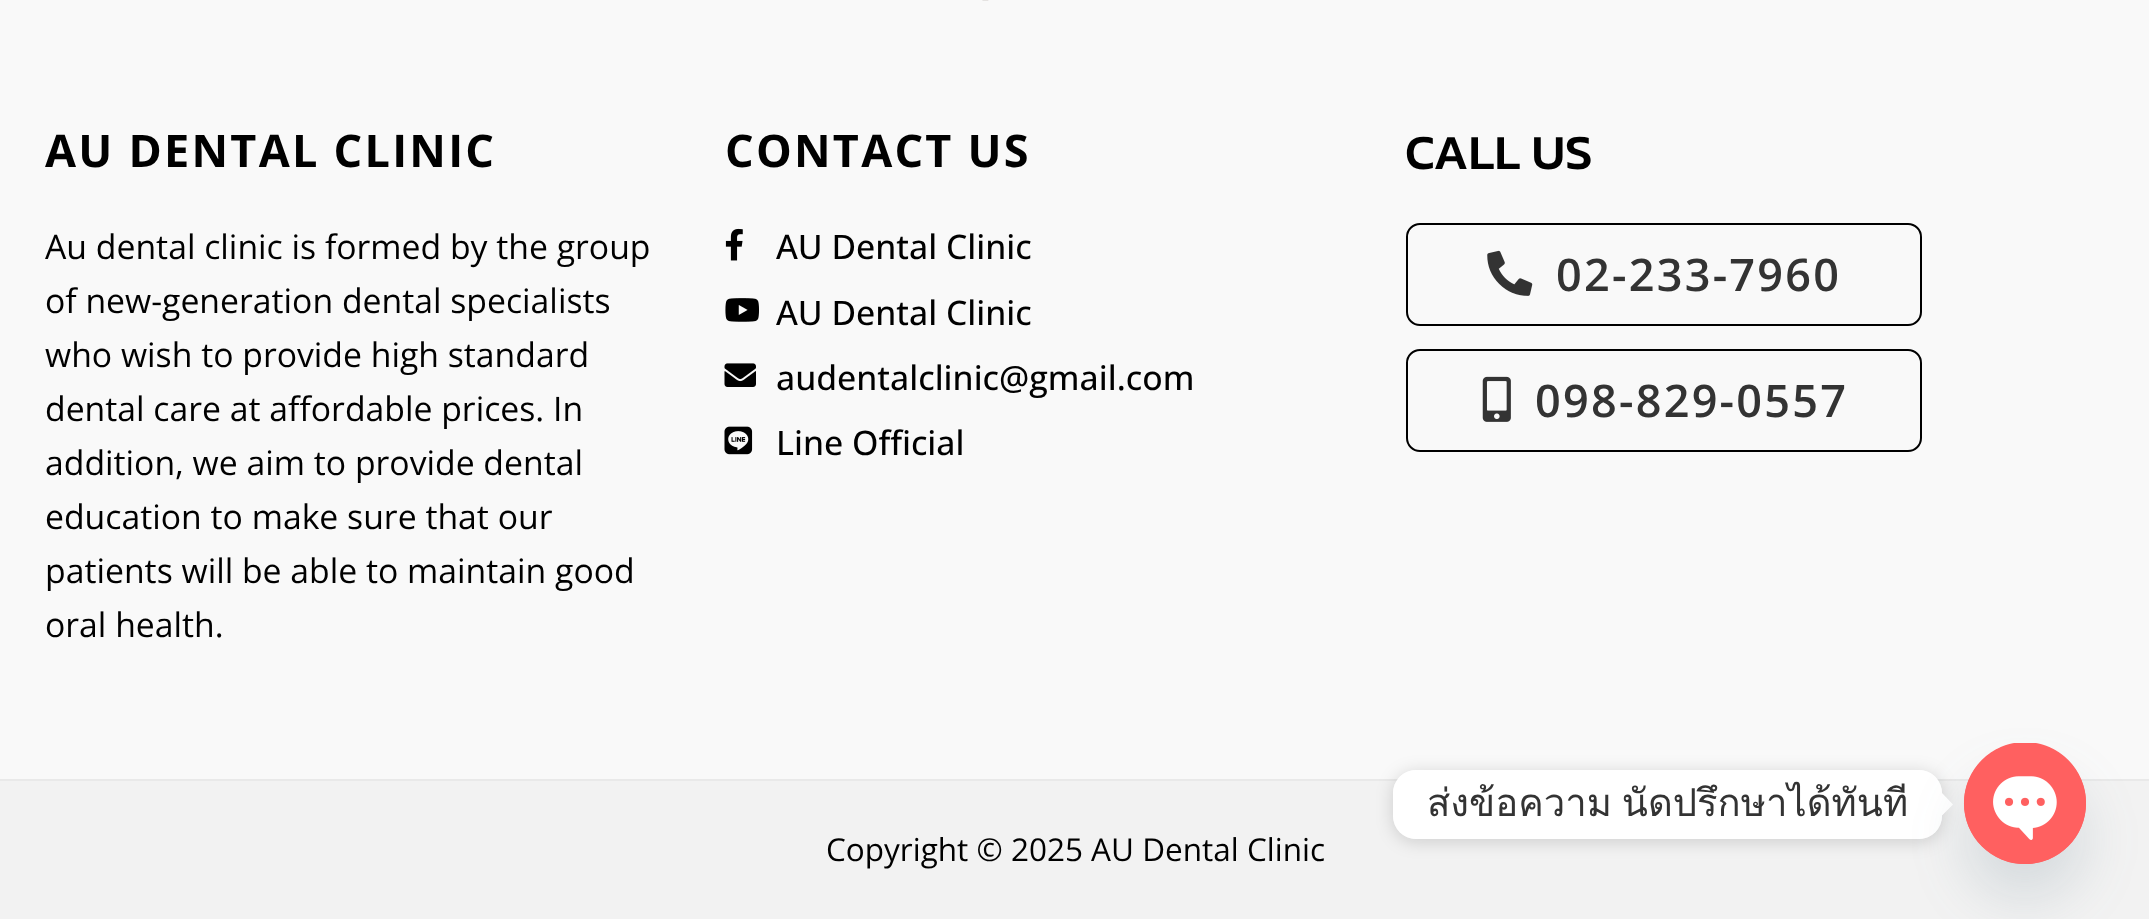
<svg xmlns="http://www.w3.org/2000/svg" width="2149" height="919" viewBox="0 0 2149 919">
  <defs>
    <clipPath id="clip1"><path d="M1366 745H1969V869H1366ZM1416 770H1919C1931.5 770 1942 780.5 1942 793V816C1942 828.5 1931.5 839 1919 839H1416C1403.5 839 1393 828.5 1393 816V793C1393 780.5 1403.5 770 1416 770Z" clip-rule="evenodd"/></clipPath>
  </defs>
  <rect width="100%" height="100%" fill="rgb(249,249,249)"/>
  <image x="982" y="0" width="7" height="1" href="pic1.png"/>
  <text x="45" y="167" font-family="Open Sans" font-size="45" font-weight="bold" letter-spacing="2.25" fill="rgb(0,0,0)">AU DENTAL CLINIC</text>
  <g font-family="Open Sans" font-size="33.75" fill="rgb(0,0,0)">
    <text>
      <tspan x="45" y="259">Au dental clinic is formed by the group</tspan>
      <tspan x="45" y="313">of new-generation dental specialists</tspan>
      <tspan x="45" y="367">who wish to provide high standard</tspan>
      <tspan x="45" y="421">dental care at affordable prices. In</tspan>
      <tspan x="45" y="475">addition, we aim to provide dental</tspan>
      <tspan x="45" y="529">education to make sure that our</tspan>
      <tspan x="45" y="583">patients will be able to maintain good</tspan>
      <tspan x="45" y="637">oral health.</tspan>
    </text>
  </g>
  <text x="725" y="167" font-family="Open Sans" font-size="45" font-weight="bold" letter-spacing="2.25" fill="rgb(0,0,0)">CONTACT US</text>
  <image x="725" y="228" width="18" height="33" href="pic2.png"/>
  <text x="776" y="259" font-family="Open Sans" font-size="33.75" font-weight="500" fill="rgb(0,0,0)">AU Dental Clinic</text>
  <image x="725" y="298" width="34" height="24" href="pic3.png"/>
  <text x="776" y="325" font-family="Open Sans" font-size="33.75" font-weight="500" fill="rgb(0,0,0)">AU Dental Clinic</text>
  <image x="724" y="363" width="32" height="24" href="pic4.png"/>
  <text x="776" y="390" font-family="Open Sans" font-size="33.75" font-weight="500" fill="rgb(0,0,0)">audentalclinic@gmail.com</text>
  <image x="724" y="426" width="29" height="29" href="pic5.png"/>
  <text x="776" y="455" font-family="Open Sans" font-size="33.75" font-weight="500" fill="rgb(0,0,0)">Line Official</text>
  <text x="1405" y="169" font-family="Kanit" font-size="49.5" font-weight="500" fill="rgb(0,0,0)">CALL US</text>
  <rect x="1407" y="224" width="514" height="101" rx="13" fill="none" stroke="rgb(0,0,0)" stroke-width="2"/>
  <image x="1487" y="250" width="46" height="46" href="pic6.png"/>
  <text x="1556" y="291" font-family="Open Sans" font-size="45" font-weight="600" letter-spacing="2.25" fill="rgb(51,51,51)">02-233-7960</text>
  <rect x="1407" y="350" width="514" height="101" rx="13" fill="none" stroke="rgb(0,0,0)" stroke-width="2"/>
  <image x="1482" y="376" width="29" height="46" href="pic7.png"/>
  <text x="1535" y="417" font-family="Open Sans" font-size="45" font-weight="600" letter-spacing="2.25" fill="rgb(51,51,51)">098-829-0557</text>
  <rect x="0" y="781" width="2149" height="138" fill="rgb(242,242,242)"/>
  <rect x="0" y="779" width="2149" height="2" fill="rgb(233,233,233)"/>
  <text x="826" y="861" font-family="Open Sans" font-size="31.5" fill="rgb(0,0,0)">Copyright © 2025 AU Dental Clinic</text>
  <g clip-path="url(#clip1)">
    <rect x="1393" y="772" width="549" height="70" rx="23" fill="rgba(0,0,0,0.15)" filter="blur(8.5px)"/>
  </g>
  <rect x="1393" y="770" width="549" height="69" rx="23" fill="rgb(255,255,255)"/>
  <text x="1427" y="816" word-spacing="-3" font-family="Loma" font-size="38.25" fill="rgb(51,51,51)">ส่งข้อความ นัดปรึกษาได้ทันที</text>
  <path d="M1942 815.5V793L1953 804.5Z" fill="rgb(255,255,255)"/>
  <rect x="1964" y="779" width="122" height="121" rx="60.5" fill="rgba(73,104,126,0.16)" filter="blur(27px)"/>
  <rect x="1964" y="743" width="122" height="121" rx="60.5" fill="rgb(255,96,96)"/>
  <image x="1964" y="743" width="122" height="121" href="pic8.png"/>
</svg>
